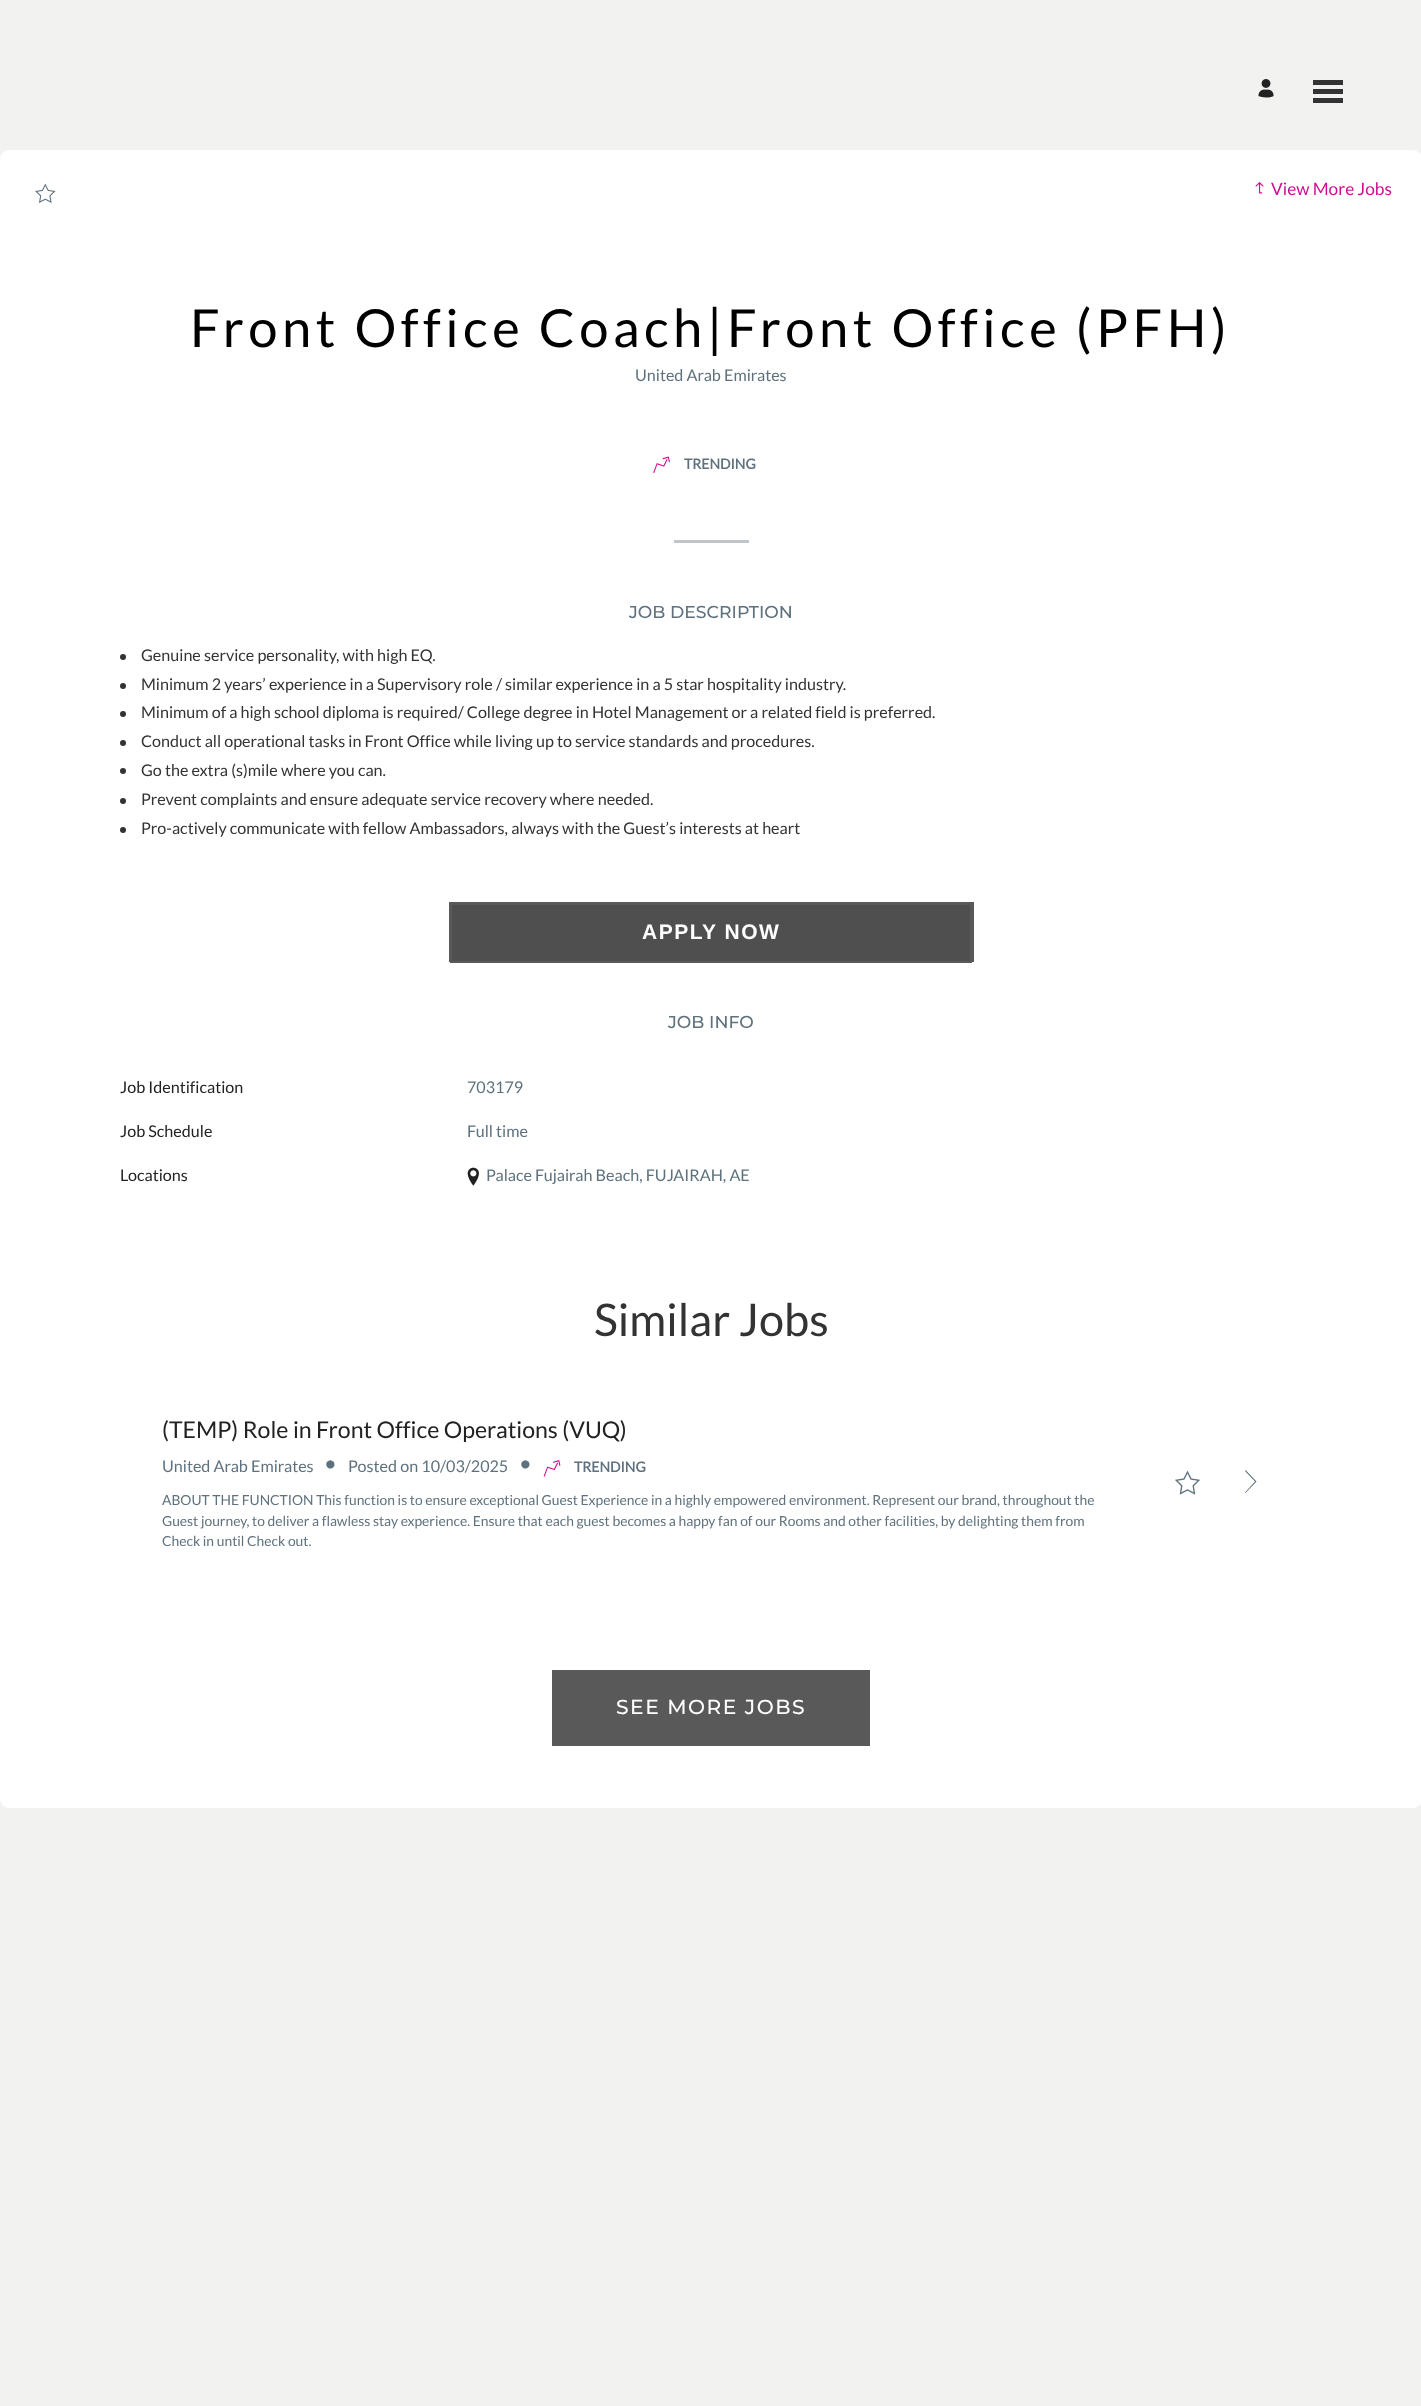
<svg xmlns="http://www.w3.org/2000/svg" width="1421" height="2406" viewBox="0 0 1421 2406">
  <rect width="100%" height="100%" fill="rgb(242,242,240)"/>
  <image x="1258" y="79" width="16" height="19" href="pic1.png"/>
  <rect x="1313" y="80" width="30" height="5" fill="rgb(51,51,51)"/>
  <rect x="1313" y="89" width="30" height="5" fill="rgb(51,51,51)"/>
  <rect x="1313" y="98" width="30" height="5" fill="rgb(51,51,51)"/>
  <rect x="0" y="150" width="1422" height="1658" rx="9" fill="rgb(255,255,255)"/>
  <image x="35" y="183" width="21" height="20" href="pic2.png"/>
  <image x="1255" y="182" width="9" height="12" href="pic3.png"/>
  <text x="1271" y="195" font-family="Lato" font-size="17.25" fill="rgb(205,14,145)">View More Jobs</text>
  <text x="190" y="347" font-family="Lato" font-size="52.5" letter-spacing="4.5" fill="rgb(0,0,0)">Front Office Coach|Front Office (PFH)</text>
  <text x="635" y="381" font-family="Lato" font-size="16.15" fill="rgb(94,113,125)">United Arab Emirates</text>
  <image x="653" y="456" width="17" height="17" href="pic4.png"/>
  <text x="684" y="469" font-family="Lato" font-size="14" font-weight="bold" fill="rgb(94,113,125)">TRENDING</text>
  <rect x="674" y="540" width="75" height="3" fill="rgb(191,198,203)"/>
  <text x="629" y="618" font-family="Montserrat" font-size="17.25" font-weight="500" fill="rgb(94,113,125)">JOB DESCRIPTION</text>
  <circle cx="123" cy="657" r="3" fill="rgb(51,51,51)"/>
  <text x="141" y="661" font-family="Lato" font-size="16.15" fill="rgb(51,51,51)">Genuine service personality, with high EQ.</text>
  <circle cx="123" cy="686" r="3" fill="rgb(51,51,51)"/>
  <text x="141" y="690" font-family="Lato" font-size="16.15" fill="rgb(51,51,51)">Minimum 2 years’ experience in a Supervisory role / similar experience in a 5 star hospitality industry.</text>
  <circle cx="123" cy="714" r="3" fill="rgb(51,51,51)"/>
  <text x="141" y="718" font-family="Lato" font-size="16.15" fill="rgb(51,51,51)">Minimum of a high school diploma is required/ College degree in Hotel Management or a related field is preferred.</text>
  <circle cx="123" cy="743" r="3" fill="rgb(51,51,51)"/>
  <text x="141" y="747" font-family="Lato" font-size="16.15" fill="rgb(51,51,51)">Conduct all operational tasks in Front Office while living up to service standards and procedures.</text>
  <circle cx="123" cy="771" r="3" fill="rgb(51,51,51)"/>
  <text x="141" y="776" font-family="Lato" font-size="16.15" fill="rgb(51,51,51)">Go the extra (s)mile where you can.</text>
  <circle cx="123" cy="801" r="3" fill="rgb(51,51,51)"/>
  <text x="141" y="805" font-family="Lato" font-size="16.15" fill="rgb(51,51,51)">Prevent complaints and ensure adequate service recovery where needed.</text>
  <circle cx="123" cy="830" r="3" fill="rgb(51,51,51)"/>
  <text x="141" y="834" font-family="Lato" font-size="16.15" fill="rgb(51,51,51)">Pro-actively communicate with fellow Ambassadors, always with the Guest’s interests at heart</text>
  <rect x="449" y="902" width="525" height="60" fill="rgb(89,89,89)"/>
  <rect x="451" y="904" width="520" height="58" fill="rgb(80,79,79)" stroke="rgb(89,89,89)" stroke-width="2"/>
  <text x="642" y="939" font-family="Liberation Sans" font-size="21" font-weight="bold" letter-spacing="1.5" fill="rgb(255,255,255)">APPLY NOW</text>
  <text x="668" y="1028" font-family="Montserrat" font-size="17.25" font-weight="500" fill="rgb(94,113,125)">JOB INFO</text>
  <text x="120" y="1093" font-family="Lato" font-size="16.15" fill="rgb(34,34,34)">Job Identification</text>
  <text x="467" y="1093" font-family="Lato" font-size="16.15" fill="rgb(94,113,125)">703179</text>
  <text x="120" y="1137" font-family="Lato" font-size="16.15" fill="rgb(34,34,34)">Job Schedule</text>
  <text x="467" y="1137" font-family="Lato" font-size="16.15" fill="rgb(94,113,125)">Full time</text>
  <text x="120" y="1181" font-family="Lato" font-size="16.15" fill="rgb(34,34,34)">Locations</text>
  <image x="467" y="1167" width="12" height="19" href="pic5.png"/>
  <text x="486" y="1181" font-family="Lato" font-size="16.15" fill="rgb(94,113,125)">Palace Fujairah Beach, FUJAIRAH, AE</text>
  <text x="594" y="1336" font-family="Lato" font-size="45" fill="rgb(51,51,51)">Similar Jobs</text>
  <text x="162" y="1438" font-family="Lato" font-size="23.1" fill="rgb(34,34,34)">(TEMP) Role in Front Office Operations (VUQ)</text>
  <text x="162" y="1472" font-family="Lato" font-size="16.15" fill="rgb(94,113,125)">United Arab Emirates</text>
  <text x="324" y="1471" font-family="Lato" font-size="22" fill="rgb(94,113,125)">•</text>
  <text x="348" y="1472" font-family="Lato" font-size="16.15" fill="rgb(94,113,125)">Posted on 10/03/2025</text>
  <text x="519" y="1471" font-family="Lato" font-size="22" fill="rgb(94,113,125)">•</text>
  <image x="543" y="1460" width="18" height="17" href="pic6.png"/>
  <text x="574" y="1472" font-family="Lato" font-size="14" font-weight="bold" fill="rgb(94,113,125)">TRENDING</text>
  <g font-family="Lato" font-size="13.85" fill="rgb(94,113,125)">
    <text>
      <tspan x="162" y="1505">ABOUT THE FUNCTION This function is to ensure exceptional Guest Experience in a highly empowered environment. Represent our brand, throughout the</tspan>
      <tspan x="162" y="1526">Guest journey, to deliver a flawless stay experience. Ensure that each guest becomes a happy fan of our Rooms and other facilities, by delighting them from</tspan>
      <tspan x="162" y="1546">Check in until Check out.</tspan>
    </text>
  </g>
  <path d="M1256.5 1481.5L1245.5 1493L1245 1492.5L1255 1481.5L1245 1471L1245.5 1470Z" fill="rgb(94,113,125)"/>
  <image x="1175" y="1470" width="25" height="25" href="pic7.png"/>
  <rect x="552" y="1670" width="318" height="76" fill="rgb(89,89,89)"/>
  <text x="616" y="1714" font-family="Montserrat" font-size="20.25" font-weight="500" letter-spacing="1.5" fill="rgb(255,255,255)">SEE MORE JOBS</text>
</svg>
